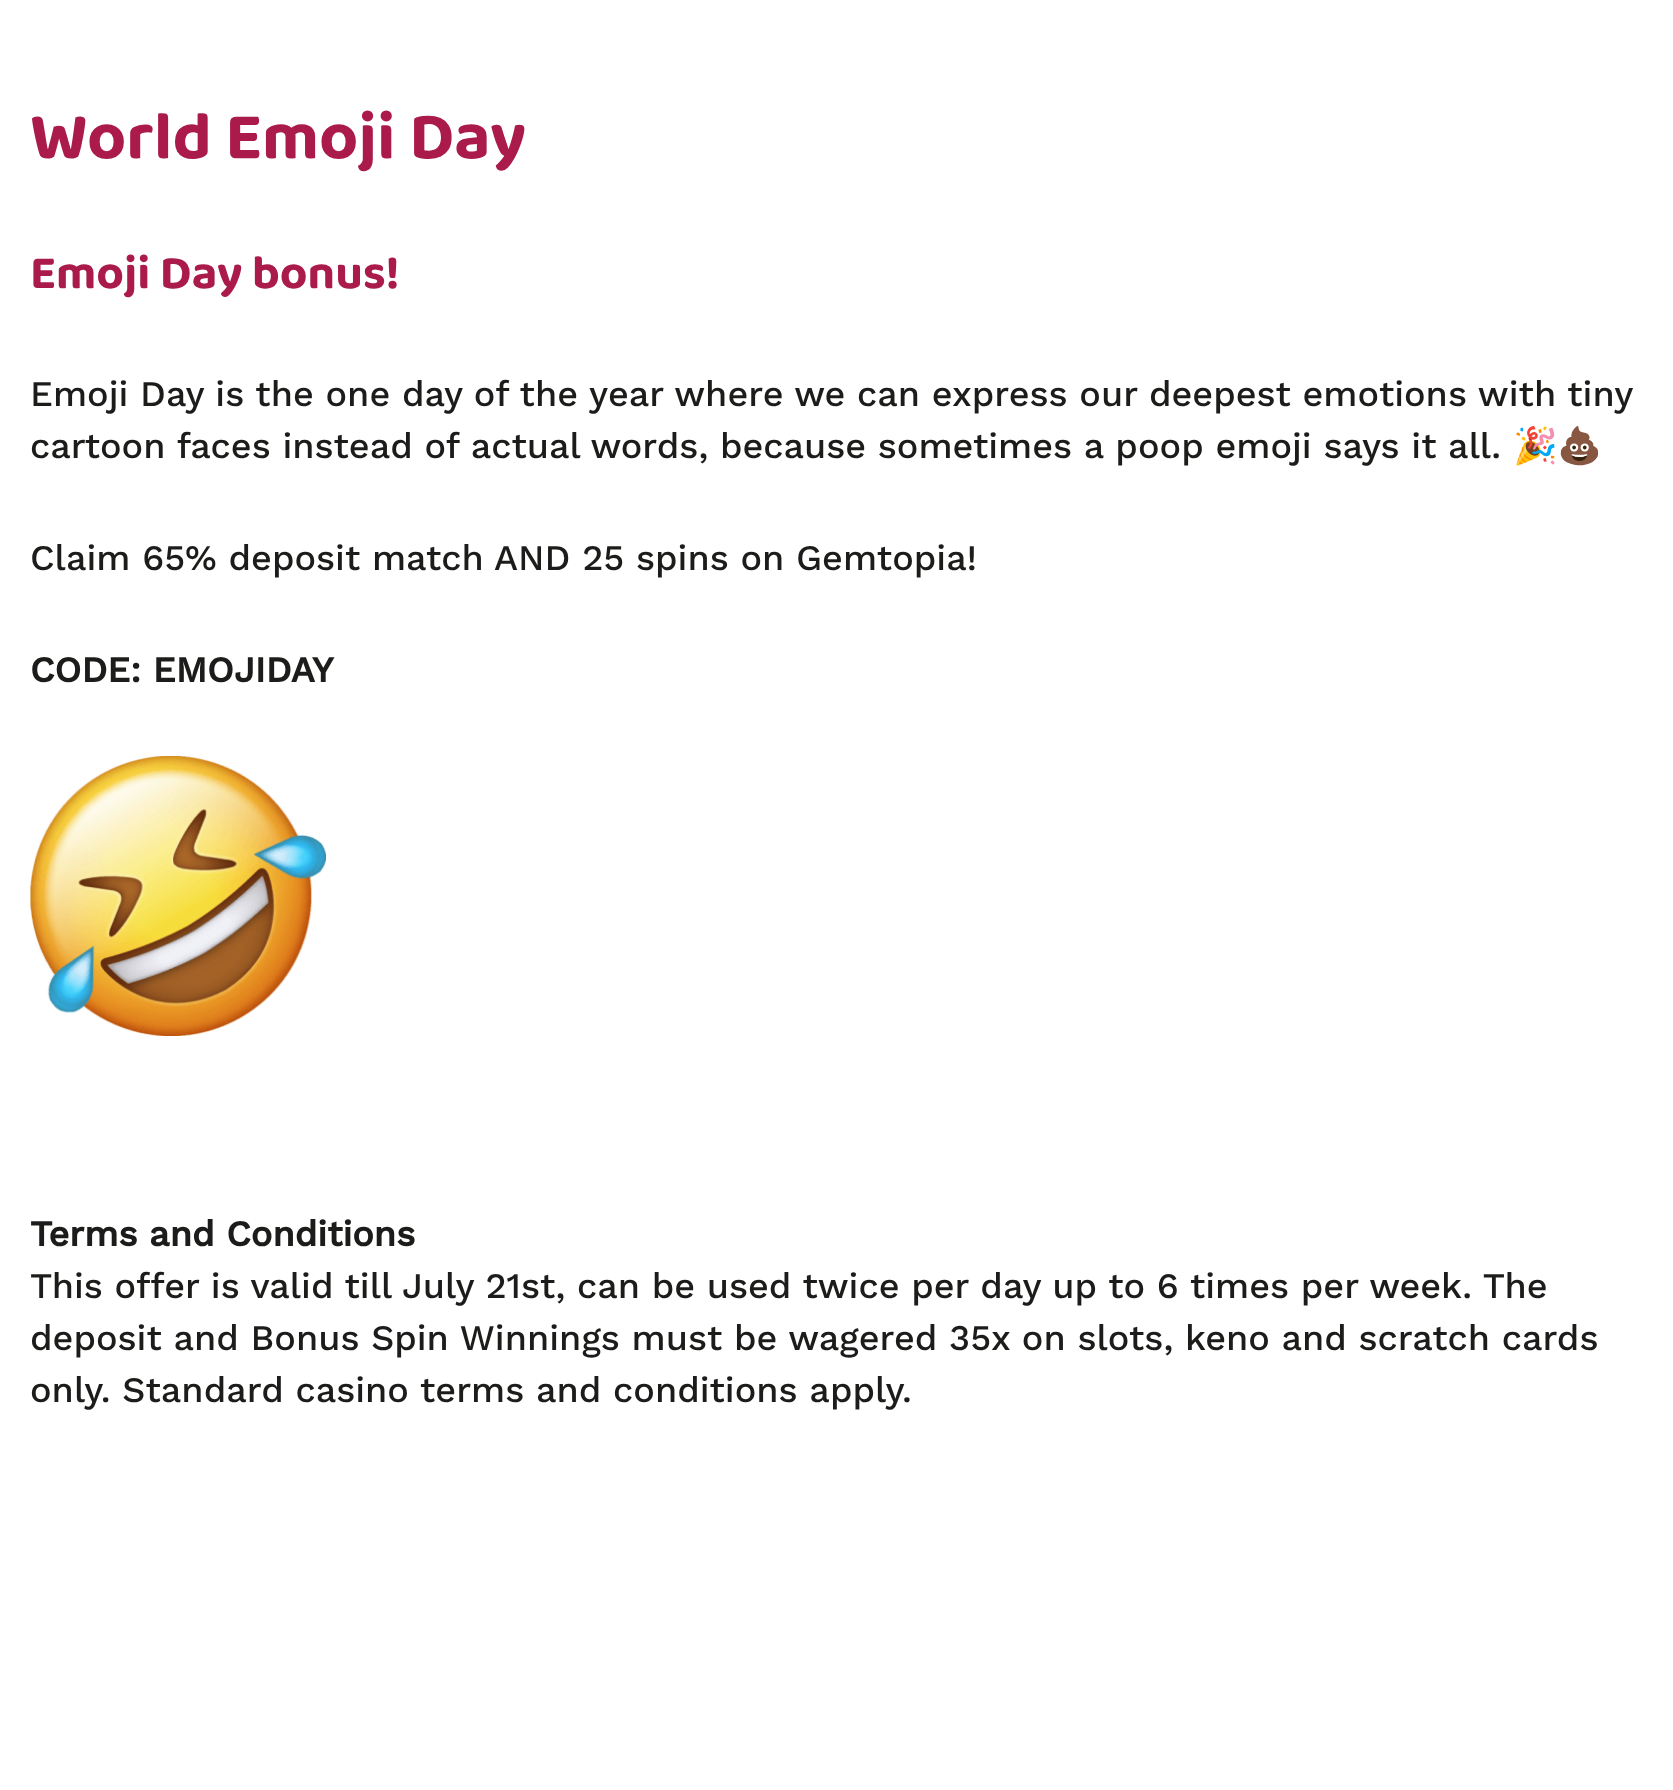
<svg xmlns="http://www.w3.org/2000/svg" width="1673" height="1790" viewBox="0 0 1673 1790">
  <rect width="100%" height="100%" fill="rgb(255,255,255)"/>
  <text x="30" y="158" font-family="'Baloo Da 2'" font-size="68" font-weight="bold" fill="rgb(170,26,74)">World Emoji Day</text>
  <text x="30" y="288" font-family="'Baloo Da 2'" font-size="48" font-weight="bold" fill="rgb(170,26,74)">Emoji Day bonus!</text>
  <g font-family="Work Sans" font-size="36" font-weight="500" fill="rgb(28,28,26)">
    <text>
      <tspan x="30" y="406">Emoji Day is the one day of the year where we can express our deepest emotions with tiny</tspan>
      <tspan x="30" y="458">cartoon faces instead of actual words, because sometimes a poop emoji says it all.</tspan>
    </text>
  </g>
  <text x="1513" y="458" font-family="Noto Color Emoji" font-size="36" fill="rgb(28,28,26)">🎉💩</text>
  <text x="30" y="570" font-family="Work Sans" font-size="36" font-weight="500" fill="rgb(28,28,26)">Claim 65% deposit match AND 25 spins on Gemtopia!</text>
  <text x="30" y="682" font-family="Work Sans" font-size="36" font-weight="bold" fill="rgb(28,28,26)">CODE: EMOJIDAY</text>
  <image x="30" y="756" width="296" height="280" href="pic1.png"/>
  <text x="30" y="1246" font-family="Work Sans" font-size="36" font-weight="bold" fill="rgb(28,28,26)">Terms and Conditions</text>
  <g font-family="Work Sans" font-size="36" font-weight="500" fill="rgb(28,28,26)">
    <text>
      <tspan x="30" y="1298">This offer is valid till July 21st, can be used twice per day up to 6 times per week. The</tspan>
      <tspan x="30" y="1350">deposit and Bonus Spin Winnings must be wagered 35x on slots, keno and scratch cards</tspan>
      <tspan x="30" y="1402">only. Standard casino terms and conditions apply.</tspan>
    </text>
  </g>
</svg>
